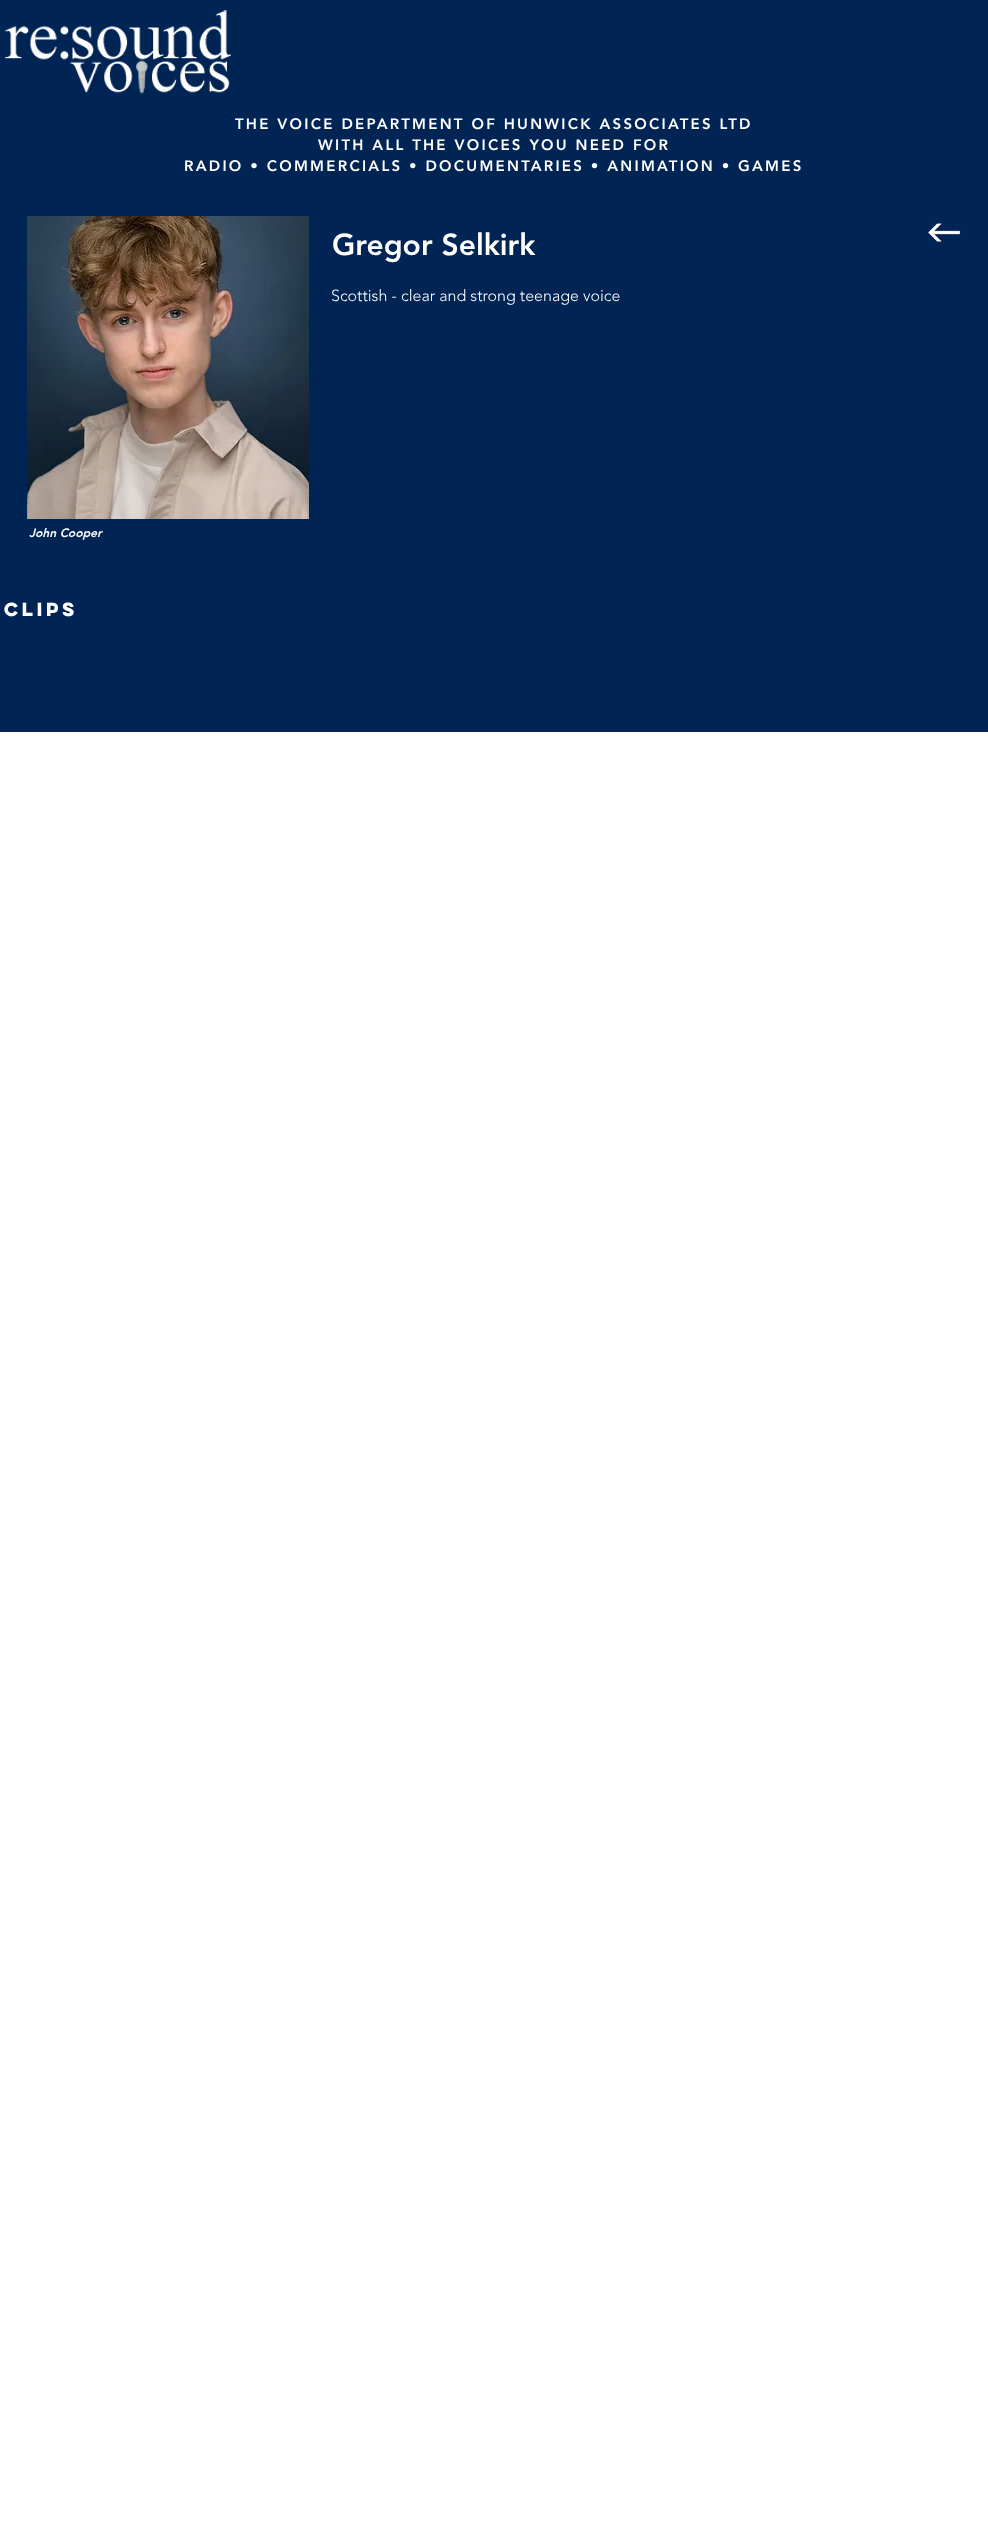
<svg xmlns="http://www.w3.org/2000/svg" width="988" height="2541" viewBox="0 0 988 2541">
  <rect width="100%" height="100%" fill="rgb(255,255,255)"/>
  <rect x="0" y="0" width="988" height="732" fill="rgb(0,36,84)"/>
  <image x="5" y="10" width="226" height="84" href="pic1.png"/>
  <g font-family="'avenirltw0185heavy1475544'" font-size="15" font-weight="900" letter-spacing="2.25" fill="rgb(255,255,255)">
    <text x="235" y="129">THE VOICE DEPARTMENT OF HUNWICK ASSOCIATES LTD</text>
    <text x="318" y="150">WITH ALL THE VOICES YOU NEED FOR</text>
    <text x="184" y="171">RADIO • COMMERCIALS • DOCUMENTARIES • ANIMATION • GAMES</text>
  </g>
  <image x="27" y="216" width="282" height="303" href="pic2.png"/>
  <text x="332" y="255" font-family="'avenirltw0185heavy1475544'" font-size="30" font-weight="900" fill="rgb(255,255,255)">Gregor Selkirk</text>
  <image x="928" y="223" width="33" height="19" href="pic3.png"/>
  <text x="331" y="301" font-family="'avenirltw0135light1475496'" font-size="16" font-weight="300" fill="rgb(255,255,255)">Scottish - clear and strong teenage voice</text>
  <text x="29" y="537" font-family="'avenirltw0185heavy1475544'" font-size="12" font-weight="900" font-style="italic" fill="rgb(255,255,255)">John Cooper</text>
  <text x="4" y="616" font-family="'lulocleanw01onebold'" font-size="17" font-weight="bold" fill="rgb(255,255,255)">CLIPS</text>
</svg>
